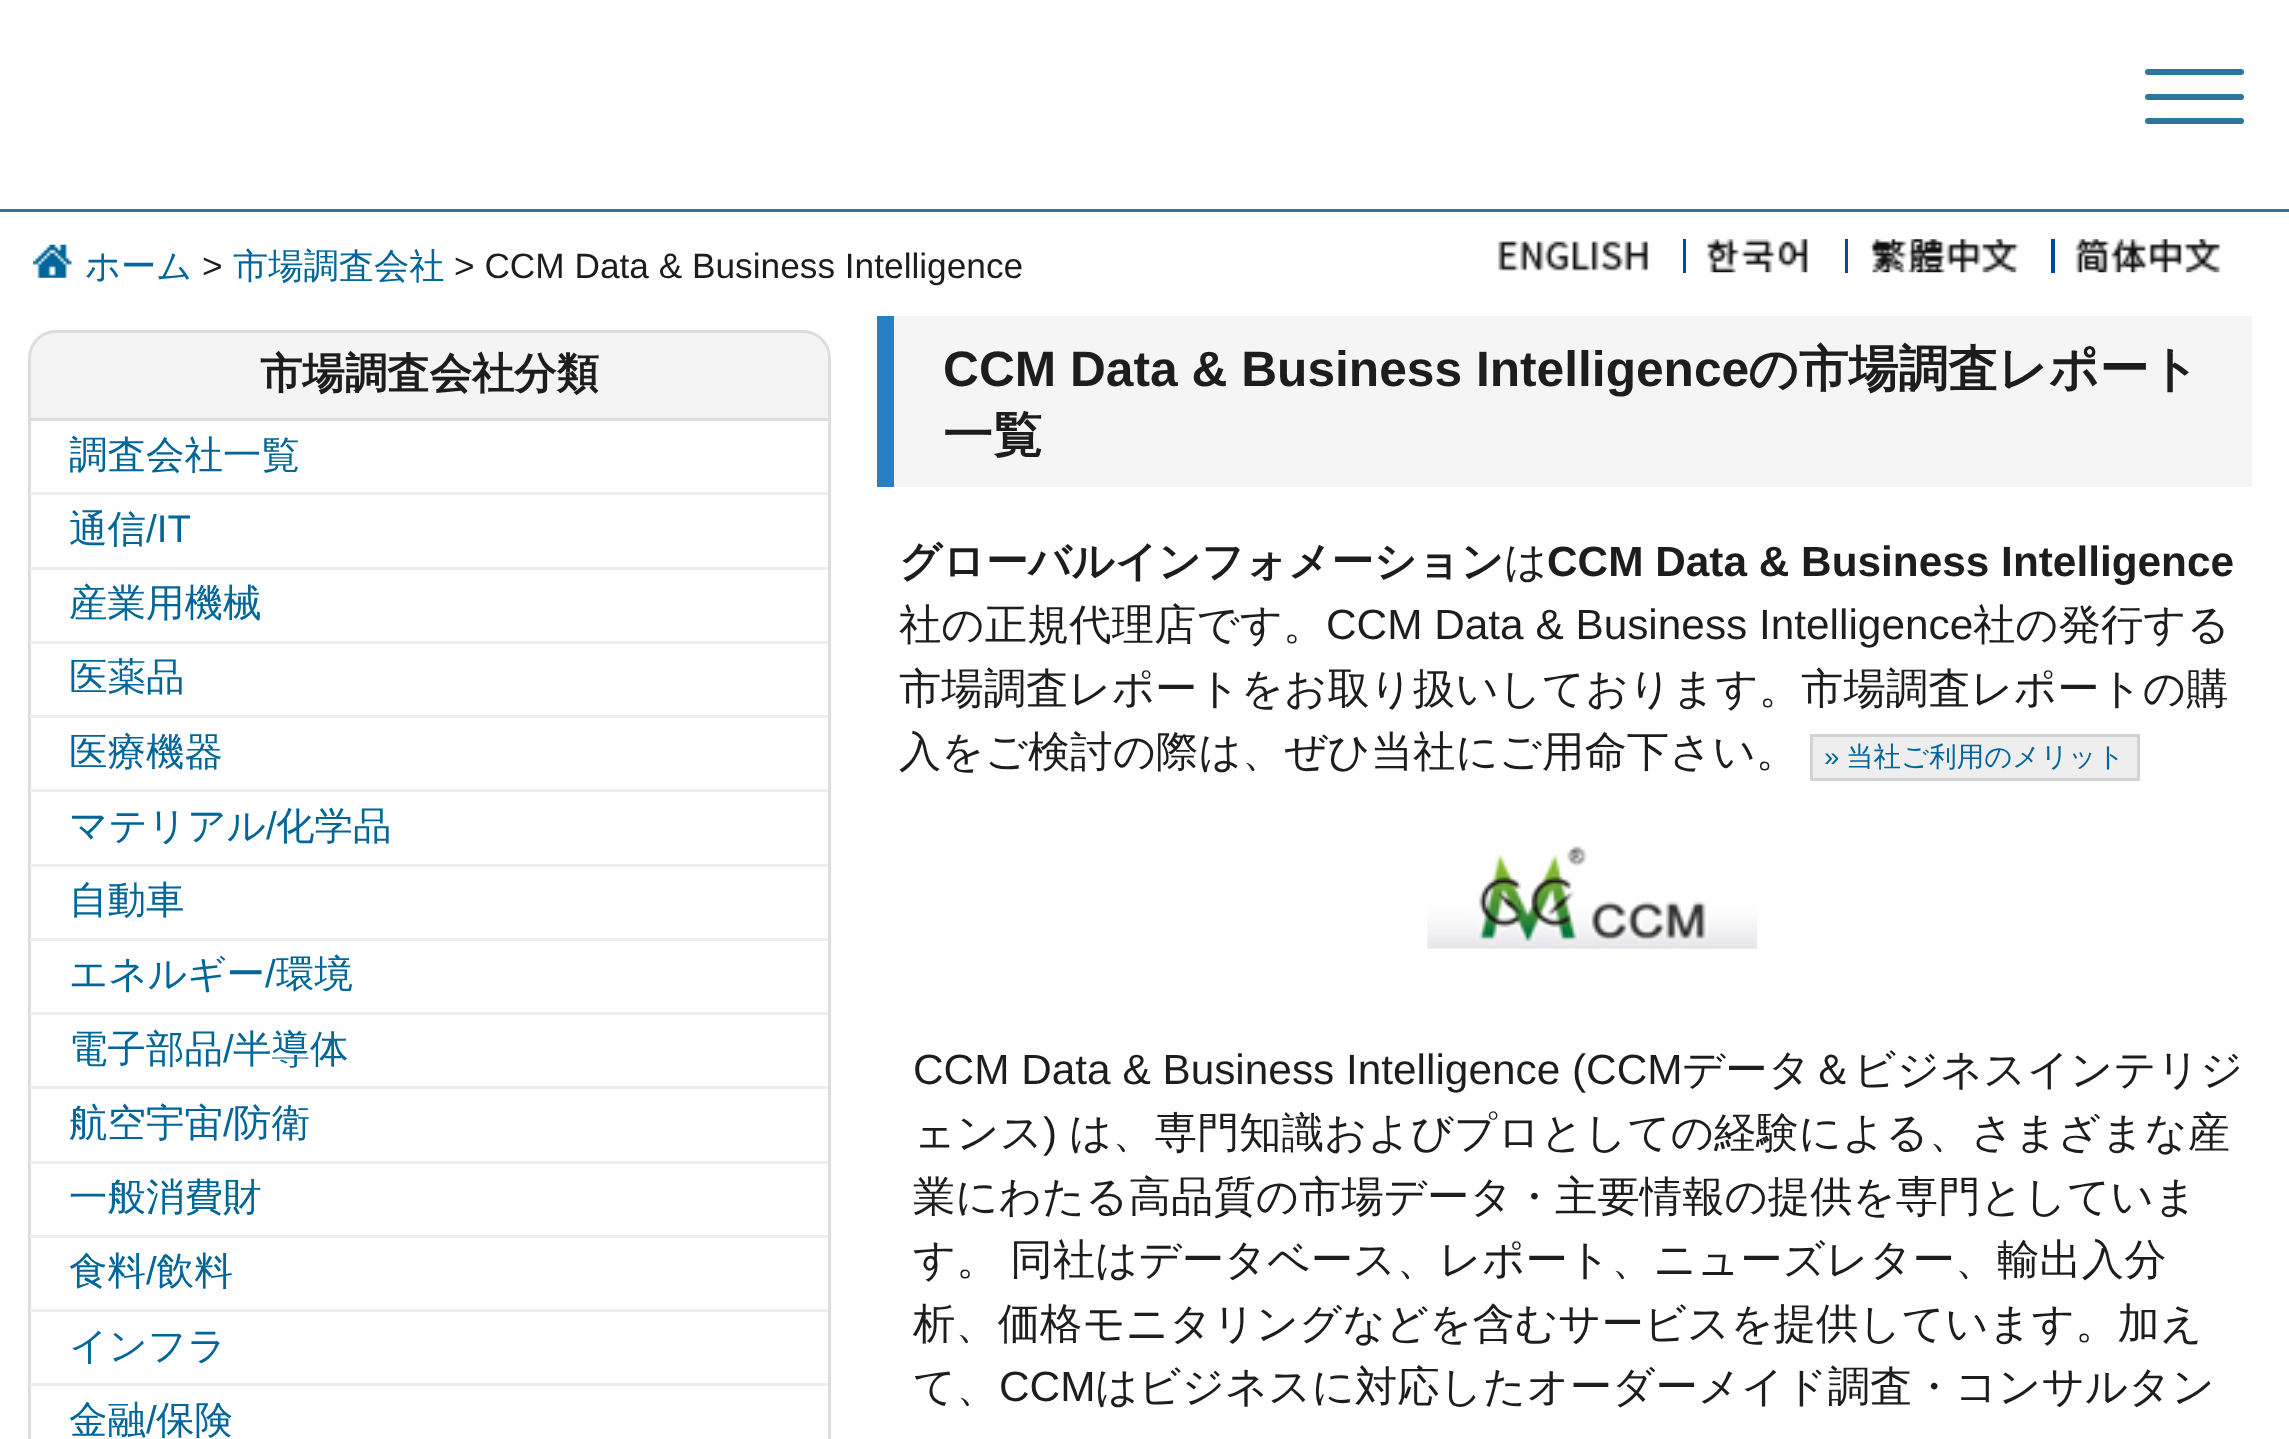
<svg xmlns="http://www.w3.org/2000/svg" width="2289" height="1439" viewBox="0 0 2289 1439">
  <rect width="100%" height="100%" fill="rgb(255,255,255)"/>
  <rect x="0" y="209" width="2289" height="3" fill="rgb(44,120,155)"/>
  <rect x="2145" y="69" width="99" height="6" rx="3" fill="rgb(44,120,155)"/>
  <rect x="2145" y="94" width="99" height="6" rx="3" fill="rgb(44,120,155)"/>
  <rect x="2145" y="118" width="99" height="6" rx="3" fill="rgb(44,120,155)"/>
  <image x="33" y="244" width="39" height="34" href="pic1.png"/>
  <text x="85" y="278" font-family="WenQuanYi Zen Hei" font-size="35.25" font-weight="500" fill="rgb(0,102,153)">ホーム</text>
  <text x="202" y="278" font-family="Liberation Sans" font-size="35.25" fill="rgb(29,29,29)">&gt;</text>
  <text x="233" y="278" font-family="WenQuanYi Zen Hei" font-size="35.25" font-weight="500" fill="rgb(0,102,153)">市場調査会社</text>
  <text x="454" y="278" font-family="Liberation Sans" font-size="35.25" fill="rgb(29,29,29)">&gt; CCM Data &amp; Business Intelligence</text>
  <image x="1498" y="241" width="151" height="30" href="pic2.png"/>
  <rect x="1683" y="239" width="3" height="34" fill="rgb(0,75,156)"/>
  <image x="1707" y="239" width="101" height="34" href="pic3.png"/>
  <rect x="1845" y="239" width="3" height="34" fill="rgb(0,75,156)"/>
  <image x="1869" y="239" width="151" height="34" href="pic4.png"/>
  <rect x="2051" y="239" width="4" height="34" fill="rgb(0,75,156)"/>
  <image x="2075" y="239" width="146" height="34" href="pic5.png"/>
  <path d="M56 331.5H803C817.5 331.5 829.5 343.5 829.5 358V419.5H29.5V358C29.5 343.5 41.5 331.5 56 331.5Z" fill="rgb(244,244,244)" stroke="rgb(221,221,221)" stroke-width="3"/>
  <text x="260" y="388" font-family="WenQuanYi Zen Hei" font-size="42.35" font-weight="bold" fill="rgb(29,29,29)">市場調査会社分類</text>
  <rect x="828" y="421" width="3" height="1018" fill="rgb(221,221,221)"/>
  <rect x="28" y="421" width="3" height="1018" fill="rgb(221,221,221)"/>
  <rect x="30" y="492" width="798" height="3" fill="rgb(238,238,238)"/>
  <text x="69" y="468" font-family="WenQuanYi Zen Hei" font-size="38.5" font-weight="500" fill="rgb(0,102,153)">調査会社一覧</text>
  <rect x="30" y="567" width="798" height="3" fill="rgb(238,238,238)"/>
  <text x="69" y="542" font-family="WenQuanYi Zen Hei" font-size="38.5" font-weight="500" fill="rgb(0,102,153)">通信</text>
  <text x="146" y="542" font-family="Liberation Sans" font-size="38.5" fill="rgb(0,102,153)">/IT</text>
  <rect x="30" y="641" width="798" height="3" fill="rgb(238,238,238)"/>
  <text x="69" y="616" font-family="WenQuanYi Zen Hei" font-size="38.5" font-weight="500" fill="rgb(0,102,153)">産業用機械</text>
  <rect x="30" y="715" width="798" height="3" fill="rgb(238,238,238)"/>
  <text x="69" y="690" font-family="WenQuanYi Zen Hei" font-size="38.5" font-weight="500" fill="rgb(0,102,153)">医薬品</text>
  <rect x="30" y="789" width="798" height="3" fill="rgb(238,238,238)"/>
  <text x="69" y="765" font-family="WenQuanYi Zen Hei" font-size="38.5" font-weight="500" fill="rgb(0,102,153)">医療機器</text>
  <rect x="30" y="864" width="798" height="3" fill="rgb(238,238,238)"/>
  <text x="69" y="839" font-family="WenQuanYi Zen Hei" font-size="38.5" font-weight="500" fill="rgb(0,102,153)">マテリアル</text>
  <text x="266" y="839" font-family="Liberation Sans" font-size="38.5" fill="rgb(0,102,153)">/</text>
  <text x="276" y="839" font-family="WenQuanYi Zen Hei" font-size="38.5" font-weight="500" fill="rgb(0,102,153)">化学品</text>
  <rect x="30" y="938" width="798" height="3" fill="rgb(238,238,238)"/>
  <text x="69" y="913" font-family="WenQuanYi Zen Hei" font-size="38.5" font-weight="500" fill="rgb(0,102,153)">自動車</text>
  <rect x="30" y="1012" width="798" height="3" fill="rgb(238,238,238)"/>
  <text x="69" y="987" font-family="WenQuanYi Zen Hei" font-size="38.5" font-weight="500" fill="rgb(0,102,153)">エネルギー</text>
  <text x="265" y="987" font-family="Liberation Sans" font-size="38.5" fill="rgb(0,102,153)">/</text>
  <text x="276" y="987" font-family="WenQuanYi Zen Hei" font-size="38.5" font-weight="500" fill="rgb(0,102,153)">環境</text>
  <rect x="30" y="1086" width="798" height="3" fill="rgb(238,238,238)"/>
  <text x="69" y="1062" font-family="WenQuanYi Zen Hei" font-size="38.5" font-weight="500" fill="rgb(0,102,153)">電子部品</text>
  <text x="223" y="1062" font-family="Liberation Sans" font-size="38.5" fill="rgb(0,102,153)">/</text>
  <text x="233" y="1062" font-family="WenQuanYi Zen Hei" font-size="38.5" font-weight="500" fill="rgb(0,102,153)">半導体</text>
  <rect x="30" y="1161" width="798" height="3" fill="rgb(238,238,238)"/>
  <text x="69" y="1136" font-family="WenQuanYi Zen Hei" font-size="38.5" font-weight="500" fill="rgb(0,102,153)">航空宇宙</text>
  <text x="223" y="1136" font-family="Liberation Sans" font-size="38.5" fill="rgb(0,102,153)">/</text>
  <text x="233" y="1136" font-family="WenQuanYi Zen Hei" font-size="38.5" font-weight="500" fill="rgb(0,102,153)">防衛</text>
  <rect x="30" y="1235" width="798" height="3" fill="rgb(238,238,238)"/>
  <text x="69" y="1210" font-family="WenQuanYi Zen Hei" font-size="38.5" font-weight="500" fill="rgb(0,102,153)">一般消費財</text>
  <rect x="30" y="1309" width="798" height="3" fill="rgb(238,238,238)"/>
  <text x="69" y="1284" font-family="WenQuanYi Zen Hei" font-size="38.5" font-weight="500" fill="rgb(0,102,153)">食料</text>
  <text x="146" y="1284" font-family="Liberation Sans" font-size="38.5" fill="rgb(0,102,153)">/</text>
  <text x="156" y="1284" font-family="WenQuanYi Zen Hei" font-size="38.5" font-weight="500" fill="rgb(0,102,153)">飲料</text>
  <rect x="30" y="1383" width="798" height="3" fill="rgb(238,238,238)"/>
  <g font-family="WenQuanYi Zen Hei" font-size="38.5" font-weight="500" fill="rgb(0,102,153)">
    <text>
      <tspan x="69" y="1359">インフラ</tspan>
      <tspan x="69" y="1433">金融</tspan>
    </text>
  </g>
  <text x="146" y="1433" font-family="Liberation Sans" font-size="38.5" fill="rgb(0,102,153)">/</text>
  <text x="156" y="1433" font-family="WenQuanYi Zen Hei" font-size="38.5" font-weight="500" fill="rgb(0,102,153)">保険</text>
  <rect x="894" y="316" width="1358" height="171" fill="rgb(245,245,245)"/>
  <rect x="877" y="316" width="17" height="171" fill="rgb(40,128,196)"/>
  <text x="943" y="386" font-family="Liberation Sans" font-size="49.7" font-weight="bold" fill="rgb(29,29,29)">CCM Data &amp; Business Intelligence</text>
  <g font-family="WenQuanYi Zen Hei" font-size="49.7" font-weight="bold" fill="rgb(29,29,29)">
    <text x="1748" y="386">の市場調査レポート</text>
    <text x="943" y="452">一覧</text>
  </g>
  <text x="899" y="576" font-family="WenQuanYi Zen Hei" font-size="42.35" font-weight="bold" fill="rgb(29,29,29)">グローバルインフォメーション</text>
  <text x="1504" y="576" font-family="WenQuanYi Zen Hei" font-size="42.35" font-weight="500" fill="rgb(29,29,29)">は</text>
  <text x="1547" y="576" font-family="Liberation Sans" font-size="42.35" font-weight="bold" fill="rgb(29,29,29)">CCM Data &amp; Business Intelligence</text>
  <text x="899" y="639" font-family="WenQuanYi Zen Hei" font-size="42.35" font-weight="500" fill="rgb(29,29,29)">社の正規代理店です。</text>
  <text x="1326" y="639" font-family="Liberation Sans" font-size="42.35" fill="rgb(29,29,29)">CCM Data &amp; Business Intelligence</text>
  <g font-family="WenQuanYi Zen Hei" font-size="42.35" font-weight="500" fill="rgb(29,29,29)">
    <text x="1973" y="639">社の発行する</text>
    <text>
      <tspan x="899" y="703">市場調査レポートをお取り扱いしております。市場調査レポートの購</tspan>
      <tspan x="899" y="766">入をご検討の際は、ぜひ当社にご用命下さい。</tspan>
    </text>
  </g>
  <rect x="1811.5" y="735.5" width="327" height="44" fill="rgb(238,238,238)" stroke="rgb(211,211,211)" stroke-width="3"/>
  <text x="1824" y="766" font-family="Liberation Sans" font-size="27.5" fill="rgb(0,102,153)">»</text>
  <text x="1846" y="766" font-family="WenQuanYi Zen Hei" font-size="27.5" font-weight="500" fill="rgb(0,102,153)">当社ご利用のメリット</text>
  <image x="1427" y="846" width="331" height="103" href="pic6.png"/>
  <text x="913" y="1084" font-family="Liberation Sans" font-size="42.35" fill="rgb(29,29,29)">CCM Data &amp; Business Intelligence (CCM</text>
  <g font-family="WenQuanYi Zen Hei" font-size="42.35" font-weight="500" fill="rgb(29,29,29)">
    <text x="1682" y="1084">データ＆ビジネスインテリジ</text>
    <text x="913" y="1147">ェンス</text>
  </g>
  <text x="1043" y="1147" font-family="Liberation Sans" font-size="42.35" fill="rgb(29,29,29)">)</text>
  <g font-family="WenQuanYi Zen Hei" font-size="42.35" font-weight="500" fill="rgb(29,29,29)">
    <text x="1069" y="1147">は、専門知識およびプロとしての経験による、さまざまな産</text>
    <text>
      <tspan x="913" y="1211">業にわたる高品質の市場データ・主要情報の提供を専門としていま</tspan>
      <tspan x="913" y="1274" word-spacing="-1">す。 同社はデータベース、レポート、ニューズレター、輸出入分</tspan>
      <tspan x="913" y="1338">析、価格モニタリングなどを含むサービスを提供しています。加え</tspan>
      <tspan x="913" y="1401">て、</tspan>
    </text>
  </g>
  <text x="999" y="1401" font-family="Liberation Sans" font-size="42.35" fill="rgb(29,29,29)">CCM</text>
  <text x="1095" y="1401" font-family="WenQuanYi Zen Hei" font-size="42.35" font-weight="500" fill="rgb(29,29,29)">はビジネスに対応したオーダーメイド調査・コンサルタン</text>
</svg>
